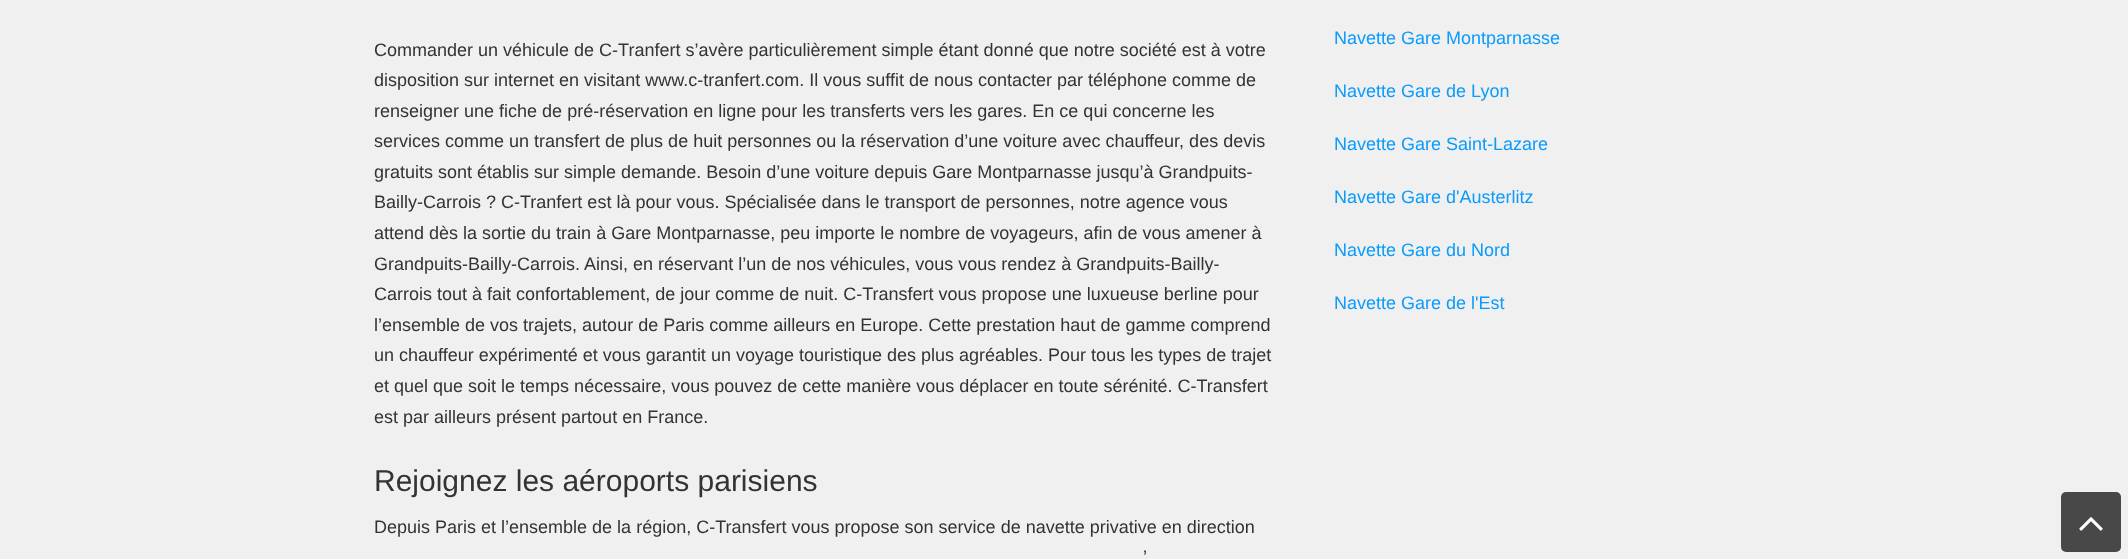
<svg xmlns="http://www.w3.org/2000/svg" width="2128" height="559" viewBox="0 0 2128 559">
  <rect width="100%" height="100%" fill="rgb(240,240,240)"/>
  <g font-family="Liberation Sans" font-size="18" fill="rgb(51,51,51)">
    <text>
      <tspan x="374" y="56">Commander un véhicule de C-Tranfert s’avère particulièrement simple étant donné que notre société est à votre</tspan>
      <tspan x="374" y="86">disposition sur internet en visitant www.c-tranfert.com. Il vous suffit de nous contacter par téléphone comme de</tspan>
      <tspan x="374" y="117">renseigner une fiche de pré-réservation en ligne pour les transferts vers les gares. En ce qui concerne les</tspan>
      <tspan x="374" y="147">services comme un transfert de plus de huit personnes ou la réservation d’une voiture avec chauffeur, des devis</tspan>
      <tspan x="374" y="178">gratuits sont établis sur simple demande. Besoin d’une voiture depuis Gare Montparnasse jusqu’à Grandpuits-</tspan>
      <tspan x="374" y="208">Bailly-Carrois ? C-Tranfert est là pour vous. Spécialisée dans le transport de personnes, notre agence vous</tspan>
      <tspan x="374" y="239">attend dès la sortie du train à Gare Montparnasse, peu importe le nombre de voyageurs, afin de vous amener à</tspan>
      <tspan x="374" y="270">Grandpuits-Bailly-Carrois. Ainsi, en réservant l’un de nos véhicules, vous vous rendez à Grandpuits-Bailly-</tspan>
      <tspan x="374" y="300">Carrois tout à fait confortablement, de jour comme de nuit. C-Transfert vous propose une luxueuse berline pour</tspan>
      <tspan x="374" y="331">l’ensemble de vos trajets, autour de Paris comme ailleurs en Europe. Cette prestation haut de gamme comprend</tspan>
      <tspan x="374" y="361">un chauffeur expérimenté et vous garantit un voyage touristique des plus agréables. Pour tous les types de trajet</tspan>
      <tspan x="374" y="392">et quel que soit le temps nécessaire, vous pouvez de cette manière vous déplacer en toute sérénité. C-Transfert</tspan>
      <tspan x="374" y="423">est par ailleurs présent partout en France.</tspan>
    </text>
  </g>
  <text x="374" y="491" font-family="Liberation Sans" font-size="30" fill="rgb(51,51,51)">Rejoignez les aéroports parisiens</text>
  <g font-family="Liberation Sans" font-size="18" fill="rgb(51,51,51)">
    <text x="374" y="533">Depuis Paris et l’ensemble de la région, C-Transfert vous propose son service de navette privative en direction</text>
    <text x="1143" y="563">’</text>
  </g>
  <g font-family="Liberation Sans" font-size="18" fill="rgb(10,155,252)">
    <text x="1334" y="44">Navette Gare Montparnasse</text>
    <text x="1334" y="97">Navette Gare de Lyon</text>
    <text x="1334" y="150">Navette Gare Saint-Lazare</text>
    <text x="1334" y="203">Navette Gare d'Austerlitz</text>
    <text x="1334" y="256">Navette Gare du Nord</text>
    <text x="1334" y="309">Navette Gare de l'Est</text>
  </g>
  <rect x="2061" y="492" width="60" height="60" rx="5" fill="rgb(72,72,72)"/>
  <image x="2079" y="517" width="24" height="14" href="pic1.png"/>
</svg>
